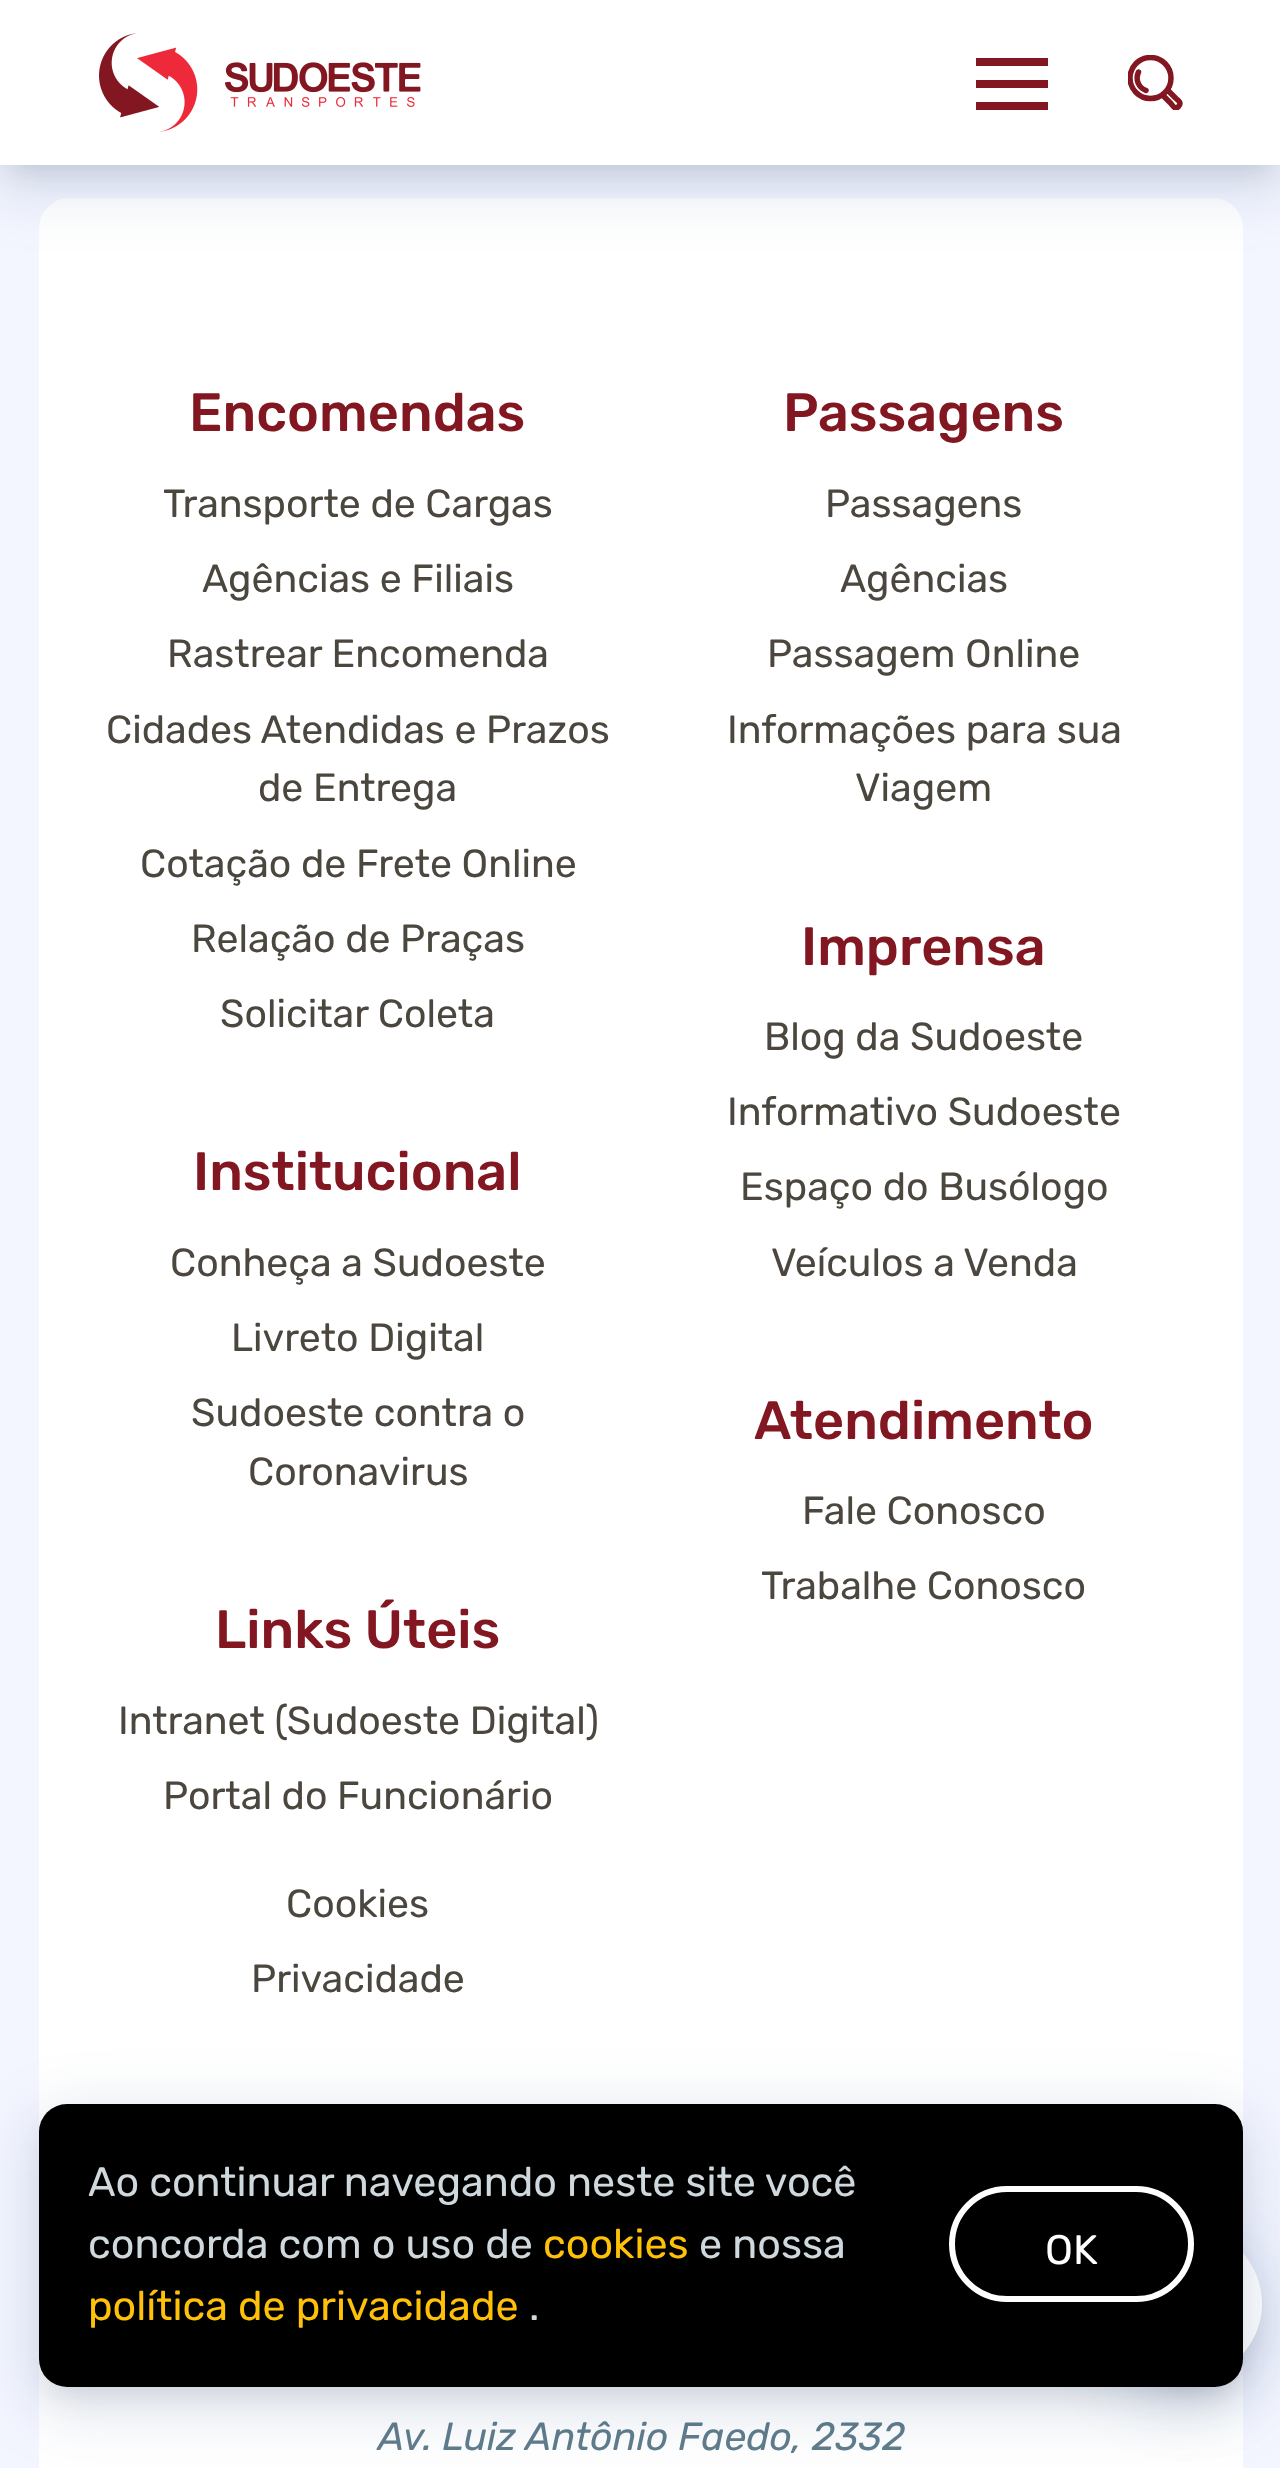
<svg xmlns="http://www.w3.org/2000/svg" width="1280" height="2468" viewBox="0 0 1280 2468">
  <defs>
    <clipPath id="clip1"><rect x="1128" y="55" width="55" height="55"/></clipPath>
  </defs>
  <rect width="100%" height="100%" fill="rgb(244,246,255)"/>
  <rect x="39" y="198" width="1204" height="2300" rx="30" fill="rgb(255,255,255)"/>
  <rect x="11" y="28" width="1260" height="143" fill="rgba(14,13,26,0.12)" filter="blur(14px)"/>
  <rect x="-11" y="6" width="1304" height="187" fill="rgba(7,48,114,0.12)" filter="blur(30px)"/>
  <rect x="0" y="0" width="1280" height="165" fill="rgb(255,255,255)"/>
  <image x="99" y="33" width="322" height="99" href="pic1.png"/>
  <rect x="976" y="80" width="72" height="8" fill="rgb(131,23,33)"/>
  <rect x="976" y="58" width="72" height="8" fill="rgb(131,23,33)"/>
  <rect x="976" y="102" width="72" height="8" fill="rgb(131,23,33)"/>
  <g clip-path="url(#clip1)">
    <path d="M1168 90.5L1175.5 98C1178.5 100.5 1182 102.5 1178.5 106.5C1175 110 1173 106 1170.5 103L1163 95.5" fill="none" stroke="rgb(131,23,33)" stroke-width="5.5" stroke-linecap="round" stroke-linejoin="round"/>
    <circle cx="1150.5" cy="78" r="20.5" fill="none" stroke="rgb(131,23,33)" stroke-width="5.5"/>
  </g>
  <path d="M1146 90.5C1138.5 87.5 1135 79.5 1138.5 72" fill="none" stroke="rgb(131,23,33)" stroke-width="5.5" stroke-linecap="round" stroke-linejoin="round"/>
  <text x="189" y="431" font-family="Rubik" font-size="54" font-weight="500" fill="rgb(131,23,33)">Encomendas</text>
  <g font-family="Rubik" font-size="39.25" fill="rgb(75,70,62)">
    <text x="163" y="517">Transporte de Cargas</text>
    <text x="202" y="592">Agências e Filiais</text>
    <text x="167" y="667">Rastrear Encomenda</text>
    <text x="106" y="743">Cidades Atendidas e Prazos</text>
    <text x="258" y="801">de Entrega</text>
    <text x="140" y="877">Cotação de Frete Online</text>
    <text x="191" y="952">Relação de Praças</text>
    <text x="220" y="1027">Solicitar Coleta</text>
  </g>
  <text x="193" y="1190" font-family="Rubik" font-size="54" font-weight="500" fill="rgb(131,23,33)">Institucional</text>
  <g font-family="Rubik" font-size="39.25" fill="rgb(75,70,62)">
    <text x="170" y="1276">Conheça a Sudoeste</text>
    <text x="231" y="1351">Livreto Digital</text>
    <text x="191" y="1426">Sudoeste contra o</text>
    <text x="248" y="1485">Coronavirus</text>
  </g>
  <text x="215" y="1648" font-family="Rubik" font-size="54" font-weight="500" fill="rgb(131,23,33)">Links Úteis</text>
  <g font-family="Rubik" font-size="39.25" fill="rgb(75,70,62)">
    <text x="118" y="1734">Intranet (Sudoeste Digital)</text>
    <text x="163" y="1809">Portal do Funcionário</text>
    <text x="286" y="1917">Cookies</text>
    <text x="251" y="1992">Privacidade</text>
  </g>
  <text x="783" y="431" font-family="Rubik" font-size="54" font-weight="500" fill="rgb(131,23,33)">Passagens</text>
  <g font-family="Rubik" font-size="39.25" fill="rgb(75,70,62)">
    <text x="825" y="517">Passagens</text>
    <text x="840" y="592">Agências</text>
    <text x="767" y="667">Passagem Online</text>
    <text x="727" y="743">Informações para sua</text>
    <text x="855" y="801">Viagem</text>
  </g>
  <text x="801" y="965" font-family="Rubik" font-size="54" font-weight="500" fill="rgb(131,23,33)">Imprensa</text>
  <g font-family="Rubik" font-size="39.25" fill="rgb(75,70,62)">
    <text x="764" y="1050">Blog da Sudoeste</text>
    <text x="727" y="1125">Informativo Sudoeste</text>
    <text x="740" y="1200">Espaço do Busólogo</text>
    <text x="771" y="1276">Veículos a Venda</text>
  </g>
  <text x="754" y="1439" font-family="Rubik" font-size="54" font-weight="500" fill="rgb(131,23,33)">Atendimento</text>
  <g font-family="Rubik" font-size="39.25" fill="rgb(75,70,62)">
    <text x="802" y="1524">Fale Conosco</text>
    <text x="761" y="1599">Trabalhe Conosco</text>
  </g>
  <text x="378" y="2450" font-family="Rubik" font-size="39.25" font-style="italic" fill="rgb(96,125,139)">Av. Luiz Antônio Faedo, 2332</text>
  <rect x="1122" y="2255" width="129" height="129" rx="64.5" fill="rgba(14,13,26,0.12)" filter="blur(14px)"/>
  <rect x="1100" y="2233" width="173" height="173" rx="86.5" fill="rgba(7,48,114,0.12)" filter="blur(30px)"/>
  <circle cx="1186.5" cy="2303.5" r="75.5" fill="rgb(255,255,255)"/>
  <rect x="50" y="2131" width="1182" height="262" rx="17" fill="rgba(14,13,26,0.12)" filter="blur(14px)"/>
  <rect x="28" y="2109" width="1226" height="306" rx="39" fill="rgba(7,48,114,0.12)" filter="blur(30px)"/>
  <rect x="39" y="2104" width="1204" height="283" rx="28" fill="rgb(0,0,0)"/>
  <g font-family="Rubik" font-size="41.25" fill="rgb(207,216,220)">
    <text>
      <tspan x="88" y="2196">Ao continuar navegando neste site você</tspan>
      <tspan x="88" y="2258">concorda com o uso de</tspan>
    </text>
  </g>
  <text x="543" y="2258" font-family="Rubik" font-size="41.25" fill="rgb(255,193,7)">cookies</text>
  <text x="699" y="2258" font-family="Rubik" font-size="41.25" fill="rgb(207,216,220)">e nossa</text>
  <text x="88" y="2320" font-family="Rubik" font-size="41.25" fill="rgb(255,193,7)">política de privacidade</text>
  <text x="529" y="2320" font-family="Rubik" font-size="41.25" fill="rgb(207,216,220)">.</text>
  <rect x="952" y="2189" width="239" height="110" rx="55" fill="none" stroke="rgb(255,255,255)" stroke-width="6"/>
  <text x="1045" y="2264" font-family="Rubik" font-size="41.25" fill="rgb(255,255,255)">OK</text>
</svg>
